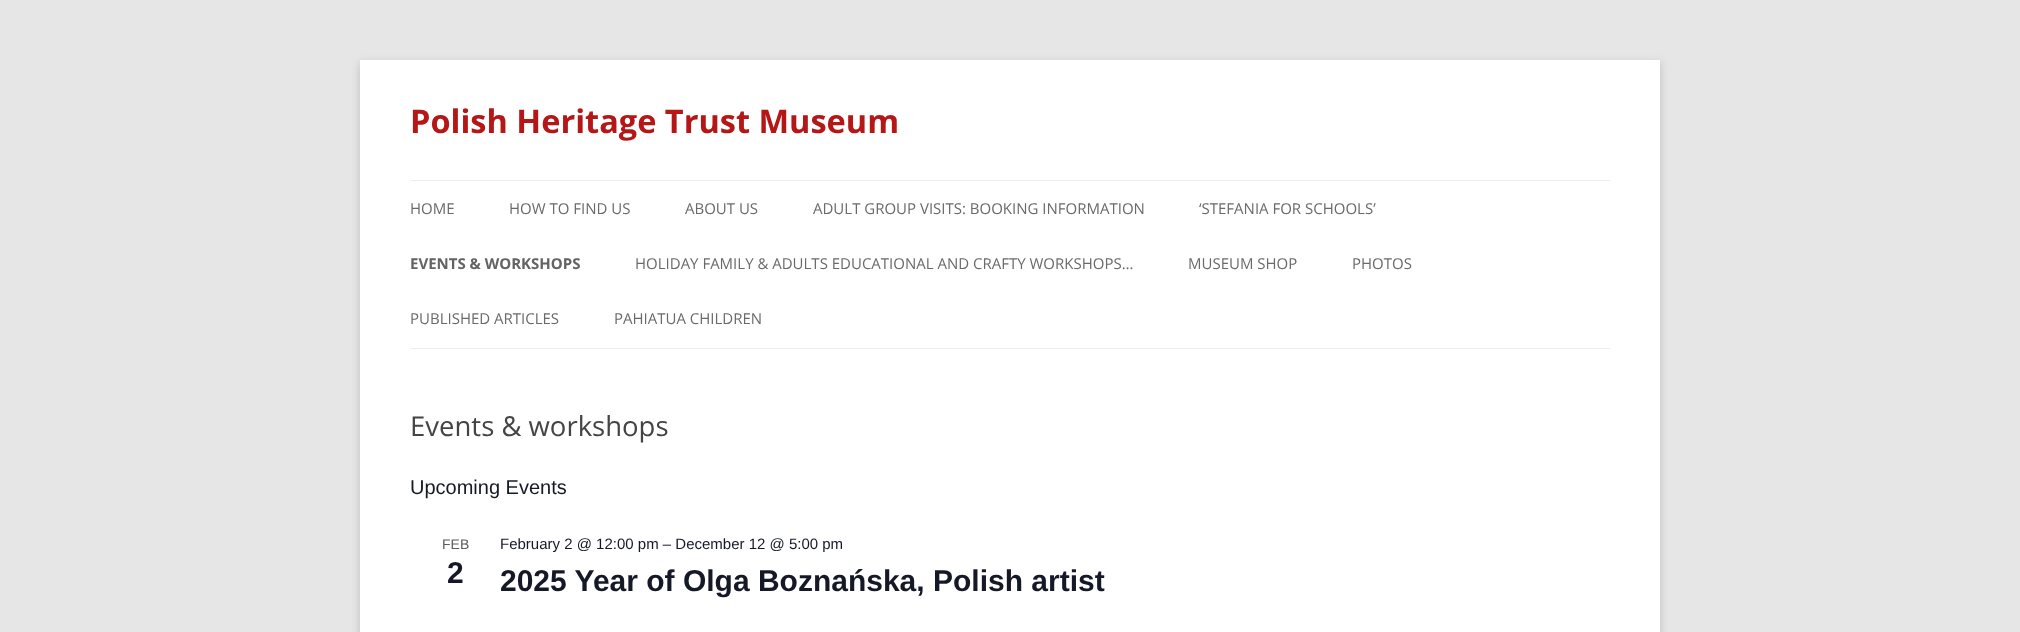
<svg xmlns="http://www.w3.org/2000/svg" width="2020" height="632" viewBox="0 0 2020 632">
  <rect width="100%" height="100%" fill="rgb(230,230,230)"/>
  <rect x="360" y="63" width="1300" height="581" fill="rgba(100,100,100,0.3)" filter="blur(4px)"/>
  <rect x="360" y="60" width="1300" height="572" fill="rgb(255,255,255)"/>
  <text x="410" y="133" font-family="Open Sans" font-size="32.5" font-weight="bold" fill="rgb(181,23,23)">Polish Heritage Trust Museum</text>
  <rect x="410" y="180" width="1200" height="1" fill="rgb(237,237,237)"/>
  <rect x="410" y="348" width="1200" height="1" fill="rgb(237,237,237)"/>
  <g font-family="Open Sans" font-size="15" fill="rgb(106,106,106)">
    <text x="410" y="214">HOME</text>
    <text x="509" y="214">HOW TO FIND US</text>
    <text x="685" y="214">ABOUT US</text>
    <text x="813" y="214">ADULT GROUP VISITS: BOOKING INFORMATION</text>
    <text x="1199" y="214">‘STEFANIA FOR SCHOOLS’</text>
  </g>
  <text x="410" y="269" font-family="Open Sans" font-size="15" font-weight="bold" fill="rgb(99,99,99)">EVENTS &amp; WORKSHOPS</text>
  <g font-family="Open Sans" font-size="15" fill="rgb(106,106,106)">
    <text x="635" y="269">HOLIDAY FAMILY &amp; ADULTS EDUCATIONAL AND CRAFTY WORKSHOPS…</text>
    <text x="1188" y="269">MUSEUM SHOP</text>
    <text x="1352" y="269">PHOTOS</text>
    <text x="410" y="324">PUBLISHED ARTICLES</text>
    <text x="614" y="324">PAHIATUA CHILDREN</text>
  </g>
  <text x="410" y="436" font-family="Open Sans" font-size="27.5" fill="rgb(68,68,68)">Events &amp; workshops</text>
  <text x="410" y="494" font-family="Liberation Sans" font-size="20" fill="rgb(20,24,39)">Upcoming Events</text>
  <text x="442" y="549" font-family="Liberation Sans" font-size="14" fill="rgb(93,93,93)">FEB</text>
  <text x="447" y="583" font-family="Liberation Sans" font-size="30" font-weight="bold" fill="rgb(20,24,39)">2</text>
  <text x="500" y="549" font-family="Liberation Sans" font-size="15" fill="rgb(20,24,39)">February 2 @ 12:00 pm – December 12 @ 5:00 pm</text>
  <text x="500" y="591" font-family="Liberation Sans" font-size="30" font-weight="bold" fill="rgb(20,24,39)">2025 Year of Olga Boznańska, Polish artist</text>
</svg>
